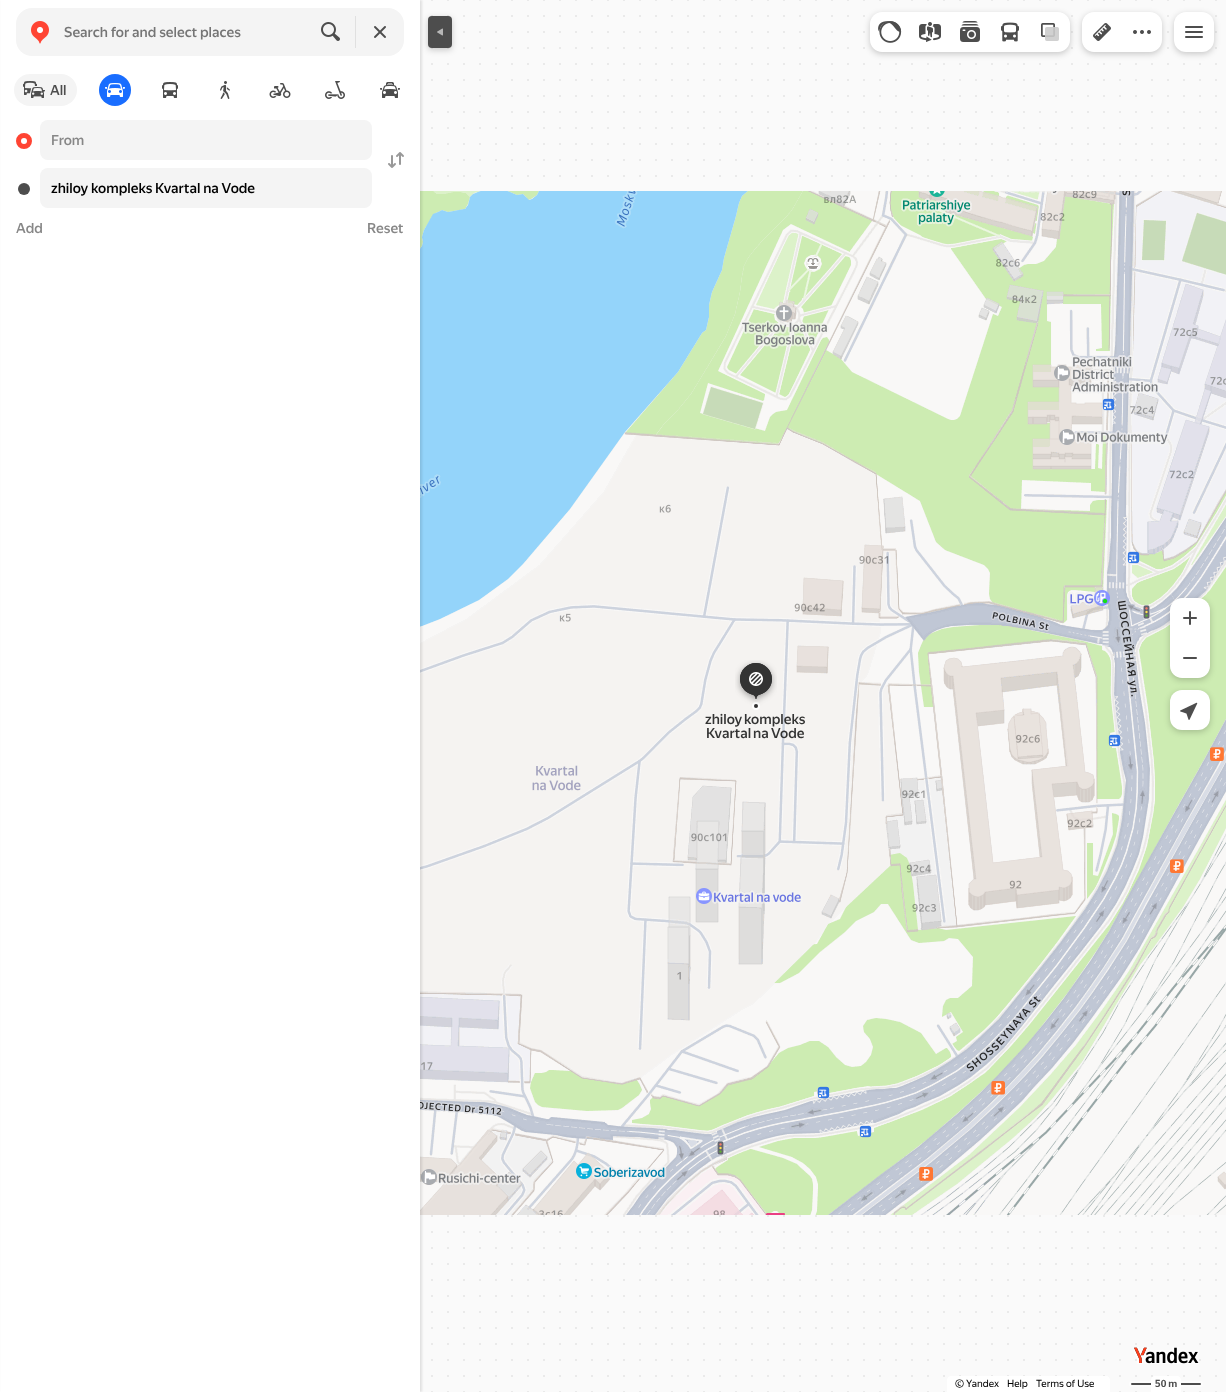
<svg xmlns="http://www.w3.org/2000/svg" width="1226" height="1392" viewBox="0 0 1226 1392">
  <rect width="100%" height="100%" fill="rgb(255,255,255)"/>
  <image x="420" y="0" width="806" height="1392" href="pic1.png"/>
  <image x="420" y="191" width="60" height="256" href="pic26.png"/>
  <image x="420" y="447" width="60" height="256" href="pic30.png"/>
  <image x="420" y="703" width="60" height="256" href="pic34.png"/>
  <image x="420" y="959" width="60" height="256" href="pic38.png"/>
  <rect x="2" y="0" width="420" height="1392" fill="rgba(0,0,0,0.1)" filter="blur(1px)"/>
  <rect x="428" y="18" width="24" height="32" rx="4" fill="rgba(0,0,0,0.2)" filter="blur(3px)"/>
  <rect x="1" y="0" width="419" height="1392" fill="rgb(255,255,255)"/>
  <rect x="16" y="8" width="388" height="48" rx="16" fill="rgb(244,244,244)"/>
  <image x="31" y="21" width="18" height="23" href="pic2.png"/>
  <text x="64" y="37" font-family="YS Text" font-size="14" font-weight="500" fill="rgb(117,117,117)">Search for and select places</text>
  <image x="321" y="22" width="19" height="19" href="pic3.png"/>
  <rect x="355" y="16" width="1" height="32" fill="rgb(224,224,224)"/>
  <image x="374" y="26" width="12" height="12" href="pic4.png"/>
  <rect x="870" y="14" width="200" height="40" rx="12" fill="rgba(0,0,0,0.2)" filter="blur(3px)"/>
  <path d="M882 12H910V52H882C875.5 52 870 46.5 870 40V24C870 17.5 875.5 12 882 12Z" fill="rgb(255,255,255)"/>
  <image x="878" y="21" width="24" height="22" href="pic5.png"/>
  <rect x="910" y="12" width="120" height="40" fill="rgb(255,255,255)"/>
  <image x="919" y="22" width="22" height="20" href="pic6.png"/>
  <path d="M1030 12H1058C1064.5 12 1070 17.5 1070 24V40C1070 46.5 1064.5 52 1058 52H1030Z" fill="rgb(255,255,255)"/>
  <image x="1041" y="23" width="18" height="18" href="pic7.png"/>
  <image x="960" y="21" width="20" height="21" href="pic8.png"/>
  <image x="1001" y="22" width="18" height="20" href="pic9.png"/>
  <rect x="1082" y="14" width="80" height="40" rx="12" fill="rgba(0,0,0,0.2)" filter="blur(3px)"/>
  <path d="M1094 12H1122V52H1094C1087.5 52 1082 46.5 1082 40V24C1082 17.5 1087.5 12 1094 12Z" fill="rgb(255,255,255)"/>
  <image x="1093" y="23" width="18" height="18" href="pic10.png"/>
  <path d="M1122 12H1150C1156.5 12 1162 17.5 1162 24V40C1162 46.5 1156.5 52 1150 52H1122Z" fill="rgb(255,255,255)"/>
  <image x="1133" y="30" width="18" height="4" href="pic11.png"/>
  <rect x="1174" y="14" width="40" height="40" rx="12" fill="rgba(0,0,0,0.2)" filter="blur(3px)"/>
  <rect x="1174" y="12" width="40" height="40" rx="12" fill="rgb(255,255,255)"/>
  <image x="1185" y="26" width="18" height="12" href="pic12.png"/>
  <image x="992" y="447" width="234" height="256" href="pic33.png"/>
  <rect x="1170" y="600" width="40" height="80" rx="12" fill="rgba(0,0,0,0.2)" filter="blur(3px)"/>
  <path d="M1182 598H1198C1204.5 598 1210 603.5 1210 610V638H1170V610C1170 603.5 1175.5 598 1182 598Z" fill="rgb(255,255,255)"/>
  <image x="1183" y="611" width="14" height="14" href="pic13.png"/>
  <path d="M1170 638H1210V666C1210 672.5 1204.5 678 1198 678H1182C1175.5 678 1170 672.5 1170 666Z" fill="rgb(255,255,255)"/>
  <image x="1183" y="657" width="14" height="2" href="pic14.png"/>
  <image x="992" y="703" width="234" height="256" href="pic37.png"/>
  <rect x="1170" y="692" width="40" height="40" rx="12" fill="rgba(0,0,0,0.2)" filter="blur(3px)"/>
  <rect x="1170" y="690" width="40" height="40" rx="12" fill="rgb(255,255,255)"/>
  <image x="1180" y="702" width="18" height="18" href="pic15.png"/>
  <rect x="428" y="16" width="24" height="32" rx="4" fill="rgb(77,77,77)"/>
  <image x="437" y="28" width="6" height="8" href="pic16.png"/>
  <rect x="14" y="74" width="63" height="32" rx="16" fill="rgb(244,244,244)"/>
  <image x="23" y="81" width="22" height="17" href="pic17.png"/>
  <text x="50" y="95" font-family="YS Text" font-size="14" font-weight="500" fill="rgb(77,77,77)">All</text>
  <circle cx="115" cy="90" r="16" fill="rgb(25,109,255)"/>
  <image x="105" y="83" width="20" height="14" href="pic18.png"/>
  <image x="162" y="82" width="16" height="16" href="pic19.png"/>
  <image x="220" y="81" width="10" height="18" href="pic20.png"/>
  <image x="269" y="83" width="22" height="15" href="pic21.png"/>
  <image x="325" y="81" width="20" height="18" href="pic22.png"/>
  <image x="380" y="82" width="20" height="16" href="pic23.png"/>
  <circle cx="24" cy="141" r="7" fill="rgb(255,68,51)" stroke="rgb(255,68,51)" stroke-width="2"/>
  <circle cx="24" cy="141" r="3" fill="rgb(255,255,255)"/>
  <rect x="40" y="120" width="332" height="40" rx="8" fill="rgb(244,244,244)"/>
  <text x="51" y="145" font-family="YS Text" font-size="14" font-weight="500" fill="rgb(135,135,135)">From</text>
  <circle cx="24" cy="189" r="6" fill="rgb(77,77,77)"/>
  <rect x="40" y="168" width="332" height="40" rx="8" fill="rgb(244,244,244)"/>
  <text x="51" y="193" font-family="YS Text" font-size="14" font-weight="500" fill="rgb(0,0,0)">zhiloy kompleks Kvartal na Vode</text>
  <image x="388" y="152" width="16" height="16" href="pic24.png"/>
  <g font-family="YS Text" font-size="14" font-weight="500" fill="rgb(135,135,135)">
    <text x="16" y="233">Add</text>
    <text x="367" y="233">Reset</text>
  </g>
  <image x="1134" y="1347" width="65" height="17" href="pic25.png"/>
  <path d="M951 1376H1106C1108 1376 1110 1378 1110 1380V1392H947V1380C947 1378 949 1376 951 1376Z" fill="rgb(255,255,255)"/>
  <g font-family="YS Text" font-size="10" fill="rgb(0,0,0)">
    <text x="955" y="1387">© Yandex</text>
    <text x="1007" y="1387">Help</text>
    <text x="1036" y="1387">Terms of Use</text>
  </g>
  <rect x="1129" y="1381" width="74" height="6" rx="3" fill="rgb(253,253,253)"/>
  <rect x="1131" y="1383" width="70" height="2" rx="1" fill="rgb(77,77,77)"/>
  <path d="M1155 1376H1177C1179 1376 1181 1378 1181 1380V1392H1151V1380C1151 1378 1153 1376 1155 1376Z" fill="rgb(255,255,255)"/>
  <text x="1155" y="1387" font-family="YS Text" font-size="10" font-weight="bold" fill="rgb(77,77,77)">50 m</text>
  <image x="480" y="191" width="256" height="256" href="pic27.png"/>
  <image x="736" y="191" width="256" height="256" href="pic28.png"/>
  <image x="992" y="191" width="234" height="256" href="pic29.png"/>
  <image x="480" y="447" width="256" height="256" href="pic31.png"/>
  <image x="736" y="447" width="256" height="256" href="pic32.png"/>
  <image x="480" y="703" width="256" height="256" href="pic35.png"/>
  <image x="736" y="703" width="256" height="256" href="pic36.png"/>
  <image x="480" y="959" width="256" height="256" href="pic39.png"/>
  <image x="736" y="959" width="256" height="256" href="pic40.png"/>
  <image x="992" y="959" width="234" height="256" href="pic41.png"/>
  <image x="735" y="660" width="42" height="50" href="pic42.png"/>
  <image x="749" y="672" width="14" height="14" href="pic43.png"/>
  <g font-family="YS Text" font-size="14" font-weight="500" fill="rgb(51,51,51)">
    <text x="705" y="724">zhiloy</text>
    <text x="744" y="724">kompleks</text>
    <text x="706" y="738">Kvartal</text>
    <text x="753" y="738">na</text>
    <text x="771" y="738">Vode</text>
  </g>
</svg>
